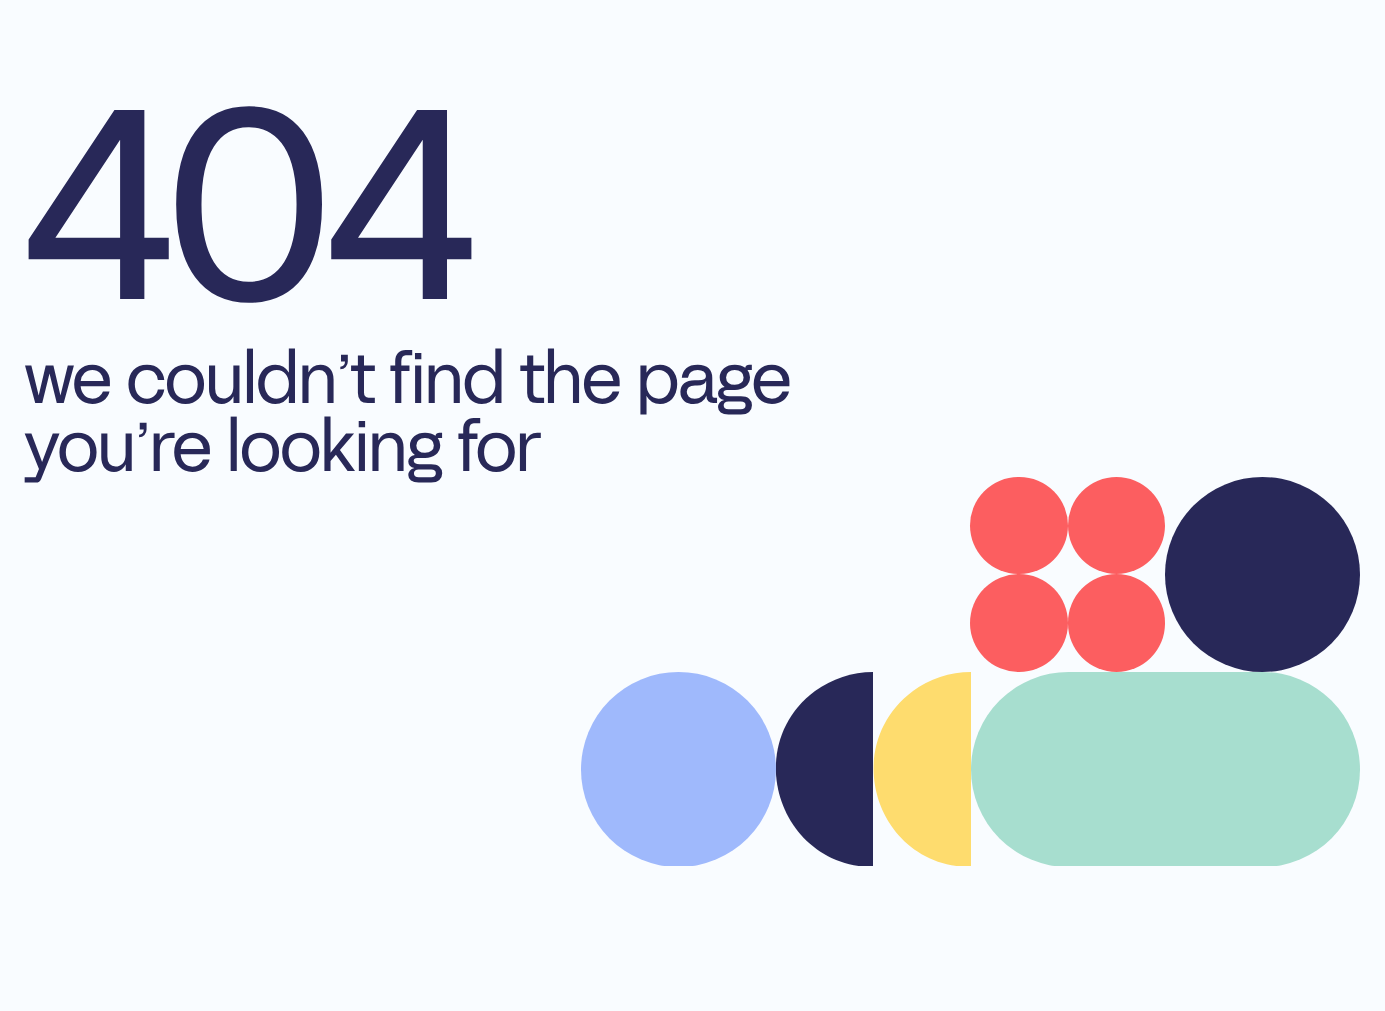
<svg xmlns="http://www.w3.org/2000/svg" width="1385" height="1011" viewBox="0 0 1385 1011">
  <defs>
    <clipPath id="clip1"><rect x="581" y="477" width="780" height="389"/></clipPath>
  </defs>
  <rect width="100%" height="100%" fill="rgb(249,252,255)"/>
  <text x="24" y="299" font-family="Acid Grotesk" font-size="270" font-weight="500" letter-spacing="-5.5" fill="rgb(40,40,88)">404</text>
  <g font-family="Acid Grotesk" font-size="68" font-weight="500" letter-spacing="-1.35" fill="rgb(40,40,88)">
    <text>
      <tspan x="24" y="403">we couldn’t find the page</tspan>
      <tspan x="24" y="471">you’re looking for</tspan>
    </text>
  </g>
  <g clip-path="url(#clip1)">
    <path d="M873 672C852 672 832 679 815 691C740 747 780 867 873 867Z" fill="rgb(40,40,88)"/>
    <path d="M971 672C950 672 929 679 913 691C838 747 877 867 971 867Z" fill="rgb(254,220,110)"/>
    <circle cx="678.5" cy="769.5" r="97.5" fill="rgb(159,185,252)"/>
  </g>
  <circle cx="1262.5" cy="574.5" r="97.5" fill="rgb(40,40,88)"/>
  <g clip-path="url(#clip1)">
    <rect x="971" y="672" width="389" height="195" rx="97.5" fill="rgb(167,222,207)"/>
  </g>
  <rect x="970" y="477" width="98" height="97" rx="48.5" fill="rgb(252,94,96)"/>
  <circle cx="1019" cy="623" r="49" fill="rgb(252,94,96)"/>
  <circle cx="1116.5" cy="525.5" r="48.5" fill="rgb(252,94,96)"/>
  <rect x="1068" y="574" width="97" height="98" rx="48.5" fill="rgb(252,94,96)"/>
</svg>
